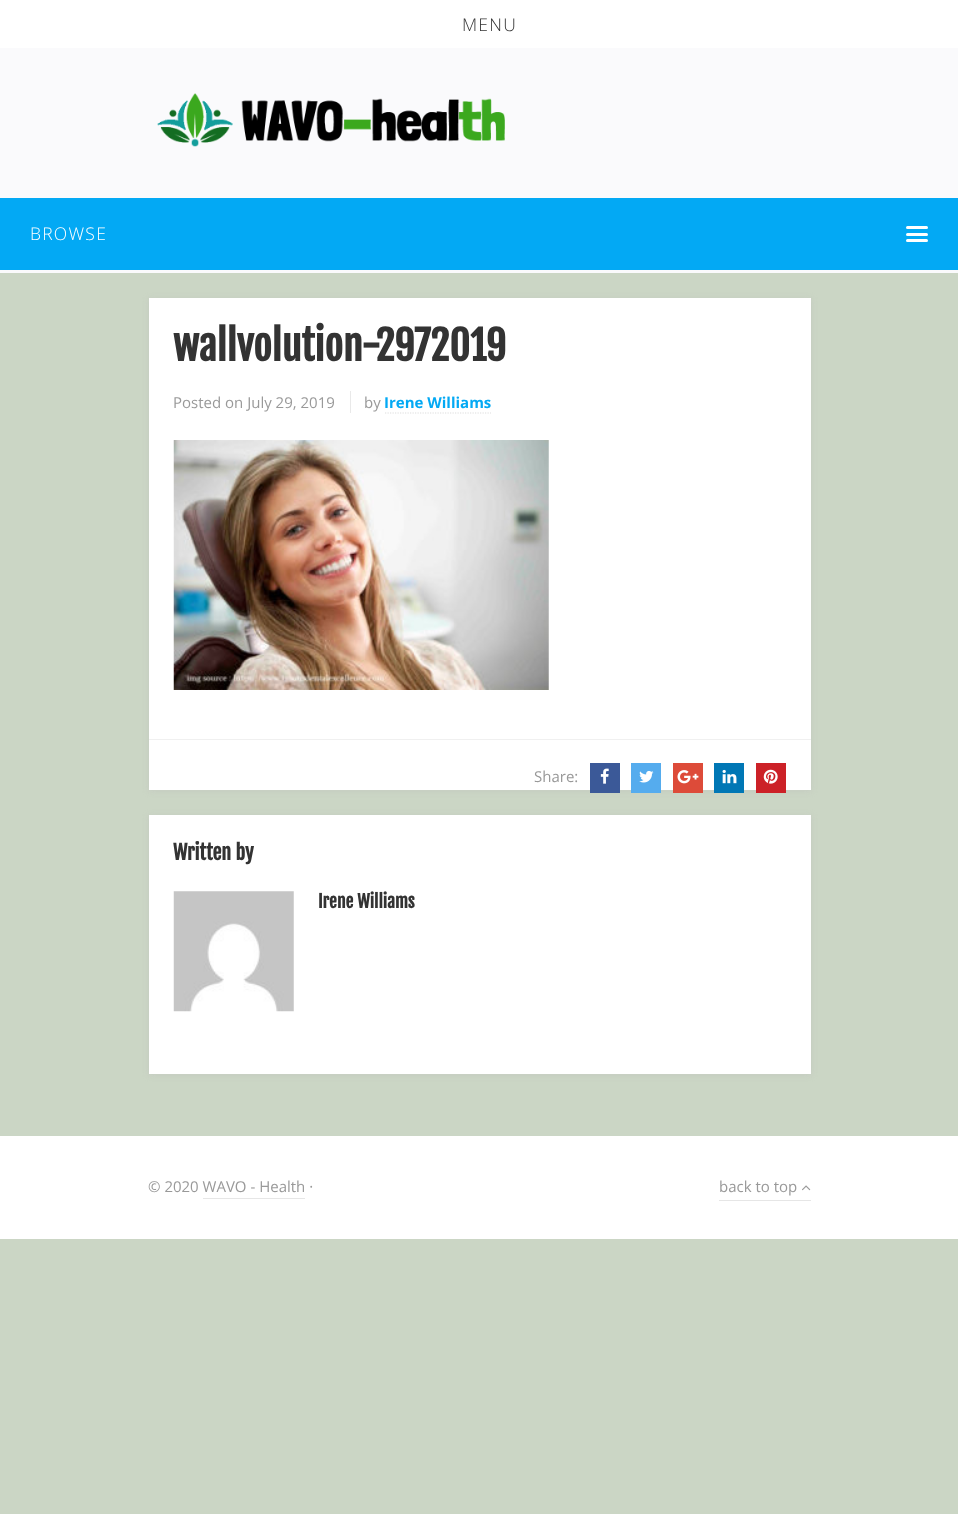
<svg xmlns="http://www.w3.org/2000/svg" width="958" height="1514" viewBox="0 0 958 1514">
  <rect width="100%" height="100%" fill="rgb(203,214,197)"/>
  <rect x="0" y="48" width="958" height="225" fill="rgb(250,250,252)"/>
  <rect x="0" y="0" width="958" height="48" fill="rgb(255,255,255)"/>
  <text x="462" y="31" font-family="Open Sans" font-size="17.5" font-weight="300" letter-spacing="1.25" fill="rgb(51,51,51)">MENU</text>
  <image x="157" y="93" width="348" height="54" href="pic1.png"/>
  <rect x="0" y="198" width="958" height="72" fill="rgb(3,169,244)"/>
  <text x="30" y="240" font-family="Open Sans" font-size="17.5" font-weight="300" letter-spacing="1.25" fill="rgb(255,255,255)">BROWSE</text>
  <rect x="906" y="226" width="22" height="3" rx="1.5" fill="rgb(255,255,255)"/>
  <rect x="906" y="233" width="22" height="3" rx="1.5" fill="rgb(255,255,255)"/>
  <rect x="906" y="239" width="22" height="3" rx="1.5" fill="rgb(255,255,255)"/>
  <rect x="149" y="299" width="662" height="492" fill="rgba(190,190,190,0.46)" filter="blur(3px)"/>
  <rect x="149" y="298" width="662" height="492" fill="rgb(255,255,255)"/>
  <text x="173" y="361" font-family="Fjalla One" font-size="40" font-weight="bold" fill="rgb(51,51,51)">wallvolution-2972019</text>
  <g font-family="Open Sans" font-size="15" fill="rgb(153,153,153)">
    <text x="173" y="408">Posted on July 29, 2019</text>
    <text x="364" y="408">by</text>
  </g>
  <rect x="350" y="391" width="1" height="22" fill="rgb(233,233,233)"/>
  <text x="384" y="408" font-family="Open Sans" font-size="15" font-weight="bold" fill="rgb(3,169,244)">Irene Williams</text>
  <path d="M385 413H491" fill="none" stroke="rgb(221,221,221)" stroke-width="1.2" stroke-dasharray="1.25 1.25"/>
  <image x="173" y="440" width="376" height="250" href="pic2.png"/>
  <rect x="149" y="739" width="662" height="1" fill="rgb(240,240,240)"/>
  <text x="534" y="782" font-family="Open Sans" font-size="15" fill="rgb(153,153,153)">Share:</text>
  <rect x="590" y="763" width="30" height="30" fill="rgb(59,89,152)"/>
  <image x="600" y="768" width="9" height="16" href="pic3.png"/>
  <rect x="631" y="763" width="30" height="30" fill="rgb(85,172,238)"/>
  <image x="639" y="770" width="15" height="13" href="pic4.png"/>
  <rect x="673" y="763" width="30" height="30" fill="rgb(221,75,57)"/>
  <image x="677" y="770" width="22" height="14" href="pic5.png"/>
  <rect x="714" y="763" width="30" height="30" fill="rgb(0,119,181)"/>
  <image x="722" y="769" width="15" height="15" href="pic6.png"/>
  <rect x="756" y="763" width="30" height="30" fill="rgb(204,33,39)"/>
  <image x="763" y="769" width="15" height="15" href="pic7.png"/>
  <rect x="149" y="816" width="662" height="259" fill="rgba(190,190,190,0.46)" filter="blur(3px)"/>
  <rect x="149" y="815" width="662" height="259" fill="rgb(255,255,255)"/>
  <text x="173" y="860" font-family="Fjalla One" font-size="20" font-weight="bold" fill="rgb(51,51,51)">Written by</text>
  <image x="173" y="891" width="121" height="121" href="pic8.png"/>
  <text x="318" y="908" font-family="Fjalla One" font-size="17.5" font-weight="bold" fill="rgb(51,51,51)">Irene Williams</text>
  <rect x="0" y="1136" width="958" height="103" fill="rgb(255,255,255)"/>
  <text x="148" y="1192" font-family="Open Sans" font-size="15" fill="rgb(153,153,153)">© 2020 WAVO - Health ·</text>
  <rect x="719" y="1200" width="92" height="1" fill="rgb(230,230,230)"/>
  <text x="719" y="1192" font-family="Open Sans" font-size="15" fill="rgb(153,153,153)">back to top</text>
  <image x="802" y="1185" width="9" height="6" href="pic9.png"/>
  <rect x="203" y="1198" width="102" height="1" fill="rgb(230,230,230)"/>
</svg>
